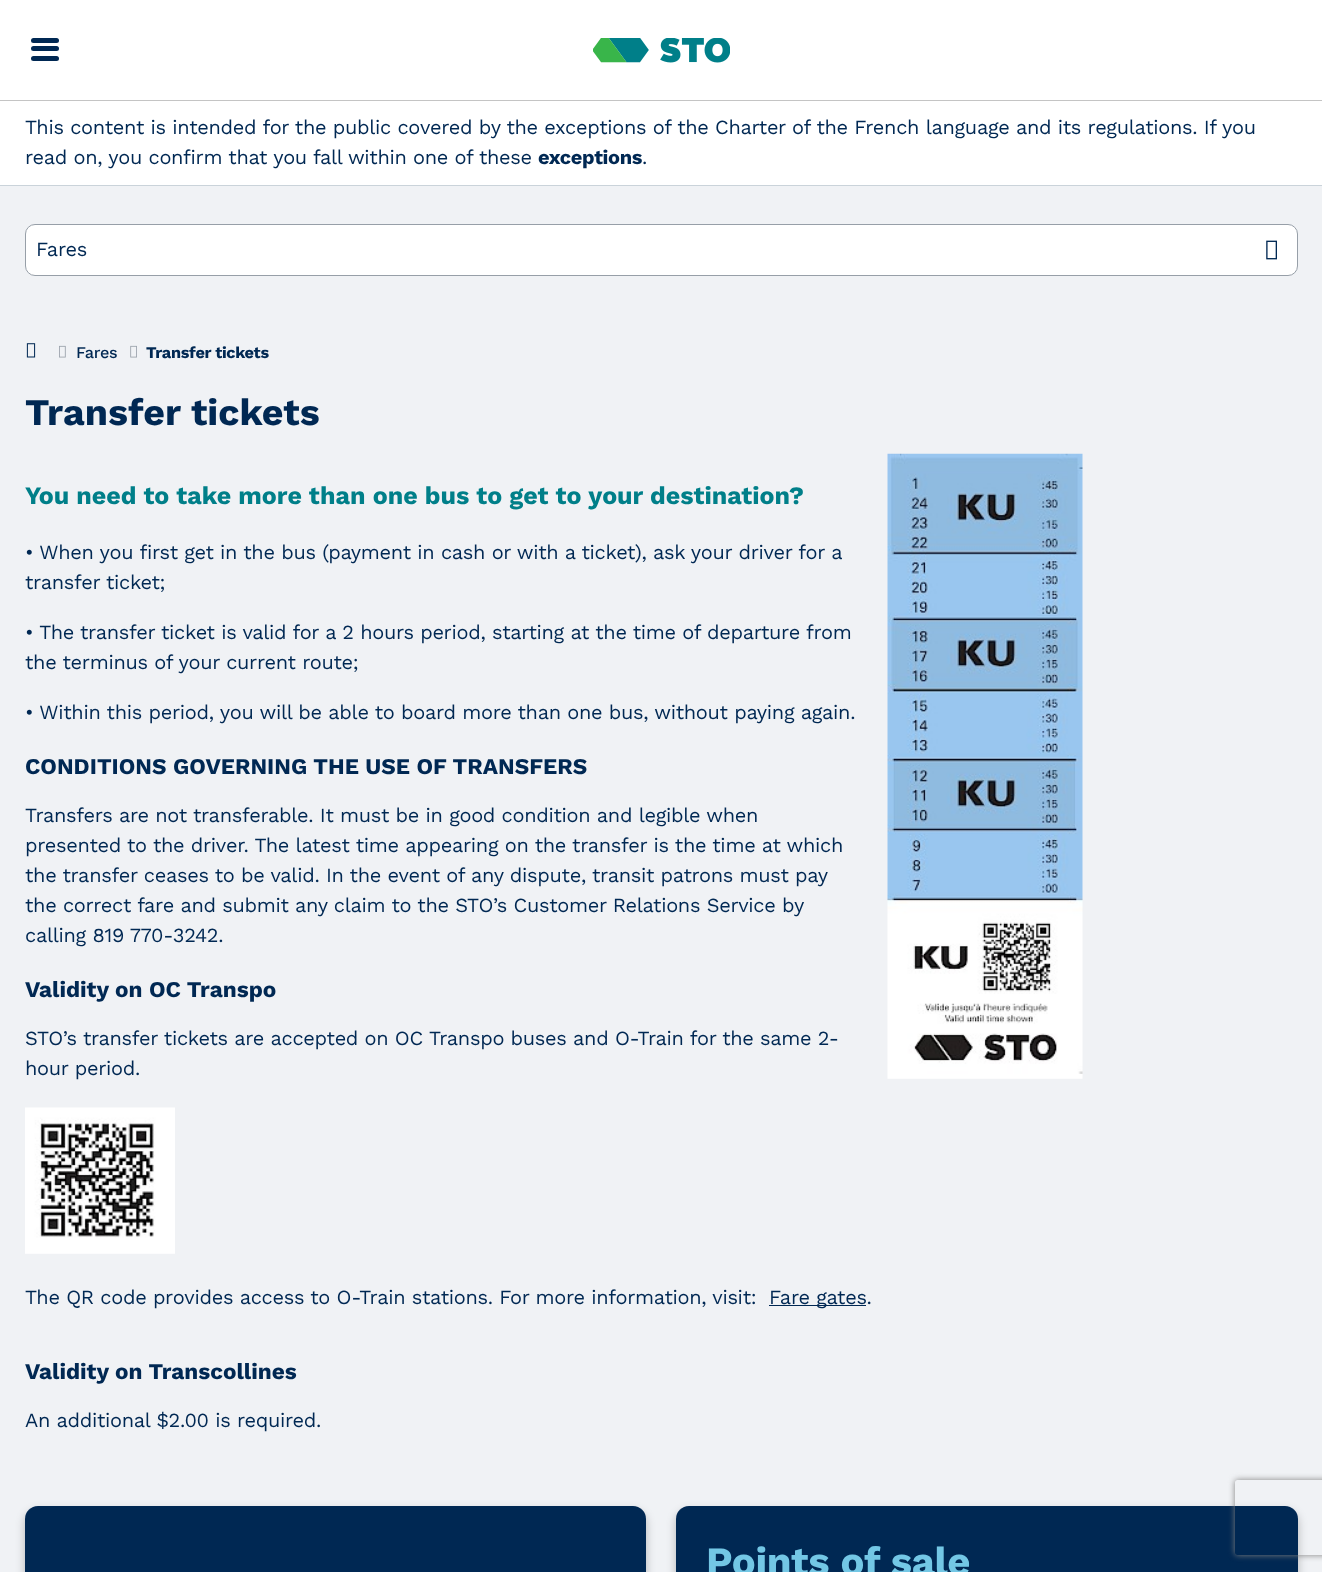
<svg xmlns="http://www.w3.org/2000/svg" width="1322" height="1572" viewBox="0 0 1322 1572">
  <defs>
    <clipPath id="clip1"><path d="M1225 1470H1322V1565H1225ZM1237.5 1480H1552.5C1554 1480 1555 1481 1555 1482.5V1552.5C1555 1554 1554 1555 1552.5 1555H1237.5C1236 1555 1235 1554 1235 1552.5V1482.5C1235 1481 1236 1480 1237.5 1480Z" clip-rule="evenodd"/></clipPath>
  </defs>
  <rect width="100%" height="100%" fill="rgb(255,255,255)"/>
  <rect x="0" y="100" width="1322" height="1" fill="rgb(196,196,196)"/>
  <rect x="31" y="38" width="28" height="5" rx="2.5" fill="rgb(0,40,83)"/>
  <rect x="31" y="46" width="28" height="5" rx="2.5" fill="rgb(0,40,83)"/>
  <rect x="31" y="56" width="28" height="5" rx="2.5" fill="rgb(0,40,83)"/>
  <image x="593" y="38" width="137" height="25" href="pic1.png"/>
  <rect x="0" y="185" width="1322" height="1" fill="rgb(202,211,218)"/>
  <g font-family="Work Sans" font-size="20" letter-spacing="-0.31" fill="rgb(0,40,83)">
    <text>
      <tspan x="25" y="134">This content is intended for the public covered by the exceptions of the Charter of the French language and its regulations. If you</tspan>
      <tspan x="25" y="164">read on, you confirm that you fall within one of these</tspan>
    </text>
  </g>
  <text x="538" y="164" font-family="Work Sans" font-size="20" font-weight="bold" letter-spacing="-0.31" fill="rgb(0,40,83)">exceptions</text>
  <text x="642" y="164" font-family="Work Sans" font-size="20" letter-spacing="-0.31" fill="rgb(0,40,83)">.</text>
  <rect x="0" y="186" width="1322" height="1386" fill="rgb(240,242,245)"/>
  <rect x="25.5" y="224.5" width="1272" height="51" rx="9.5" fill="rgb(255,255,255)" stroke="rgb(151,159,168)"/>
  <text x="36" y="256" font-family="Work Sans" font-size="20" letter-spacing="-0.31" fill="rgb(0,40,83)">Fares</text>
  <image x="1266" y="240" width="11" height="20" href="pic2.png"/>
  <image x="26" y="343" width="10" height="15" href="pic3.png"/>
  <image x="59" y="345" width="7" height="13" href="pic4.png"/>
  <text x="76" y="358" font-family="Work Sans" font-size="16.25" font-weight="500" letter-spacing="-0.31" fill="rgb(0,40,83)">Fares</text>
  <image x="130" y="345" width="7" height="13" href="pic5.png"/>
  <text x="146" y="358" font-family="Work Sans" font-size="16.25" font-weight="bold" letter-spacing="-0.31" fill="rgb(0,40,83)">Transfer tickets</text>
  <text x="25" y="425" font-family="Work Sans" font-size="37.5" font-weight="bold" fill="rgb(0,40,83)">Transfer tickets</text>
  <text x="25" y="504" font-family="Work Sans" font-size="25" font-weight="bold" fill="rgb(0,127,137)">You need to take more than one bus to get to your destination?</text>
  <g font-family="Work Sans" font-size="20" letter-spacing="-0.31" fill="rgb(0,40,83)">
    <text>
      <tspan x="25" y="559">• When you first get in the bus (payment in cash or with a ticket), ask your driver for a</tspan>
      <tspan x="25" y="589">transfer ticket;</tspan>
    </text>
    <text>
      <tspan x="25" y="639">• The transfer ticket is valid for a 2 hours period, starting at the time of departure from</tspan>
      <tspan x="25" y="669">the terminus of your current route;</tspan>
    </text>
    <text x="25" y="719">• Within this period, you will be able to board more than one bus, without paying again.</text>
  </g>
  <text x="25" y="774" font-family="Work Sans" font-size="22.5" font-weight="bold" fill="rgb(0,40,83)">CONDITIONS GOVERNING THE USE OF TRANSFERS</text>
  <g font-family="Work Sans" font-size="20" letter-spacing="-0.31" fill="rgb(0,40,83)">
    <text>
      <tspan x="25" y="822">Transfers are not transferable. It must be in good condition and legible when</tspan>
      <tspan x="25" y="852">presented to the driver. The latest time appearing on the transfer is the time at which</tspan>
      <tspan x="25" y="882">the transfer ceases to be valid. In the event of any dispute, transit patrons must pay</tspan>
      <tspan x="25" y="912">the correct fare and submit any claim to the STO’s Customer Relations Service by</tspan>
      <tspan x="25" y="942">calling 819 770-3242.</tspan>
    </text>
  </g>
  <text x="25" y="997" font-family="Work Sans" font-size="22.5" font-weight="bold" fill="rgb(0,40,83)">Validity on OC Transpo</text>
  <g font-family="Work Sans" font-size="20" letter-spacing="-0.31" fill="rgb(0,40,83)">
    <text>
      <tspan x="25" y="1045">STO’s transfer tickets are accepted on OC Transpo buses and O-Train for the same 2-</tspan>
      <tspan x="25" y="1075">hour period.</tspan>
    </text>
  </g>
  <image x="887" y="453" width="196" height="626" href="pic6.png"/>
  <image x="25" y="1107" width="150" height="147" href="pic7.png"/>
  <text x="25" y="1304" font-family="Work Sans" font-size="20" letter-spacing="-0.31" fill="rgb(0,40,83)">The QR code provides access to O-Train stations. For more information, visit:</text>
  <rect x="769" y="1305" width="97" height="1" fill="rgb(0,40,83)"/>
  <text x="769" y="1304" font-family="Work Sans" font-size="20" letter-spacing="-0.31" fill="rgb(0,40,83)">Fare gates.</text>
  <text x="25" y="1379" font-family="Work Sans" font-size="22.5" font-weight="bold" fill="rgb(0,40,83)">Validity on Transcollines</text>
  <text x="25" y="1427" font-family="Work Sans" font-size="20" letter-spacing="-0.31" fill="rgb(0,40,83)">An additional $2.00 is required.</text>
  <rect x="25" y="1511" width="621" height="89" rx="13" fill="rgba(0,0,0,0.25)" filter="blur(5px)"/>
  <rect x="25" y="1506" width="621" height="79" rx="13" fill="rgb(0,40,83)"/>
  <rect x="676" y="1511" width="622" height="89" rx="13" fill="rgba(0,0,0,0.25)" filter="blur(5px)"/>
  <rect x="676" y="1506" width="622" height="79" rx="13" fill="rgb(0,40,83)"/>
  <text x="706" y="1575" font-family="Work Sans" font-size="40" font-weight="bold" letter-spacing="-0.31" fill="rgb(115,199,229)">Points of sale</text>
  <g clip-path="url(#clip1)">
    <rect x="1235" y="1480" width="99" height="75" rx="2.5" fill="rgb(128,128,128)" filter="blur(3px)"/>
  </g>
</svg>
